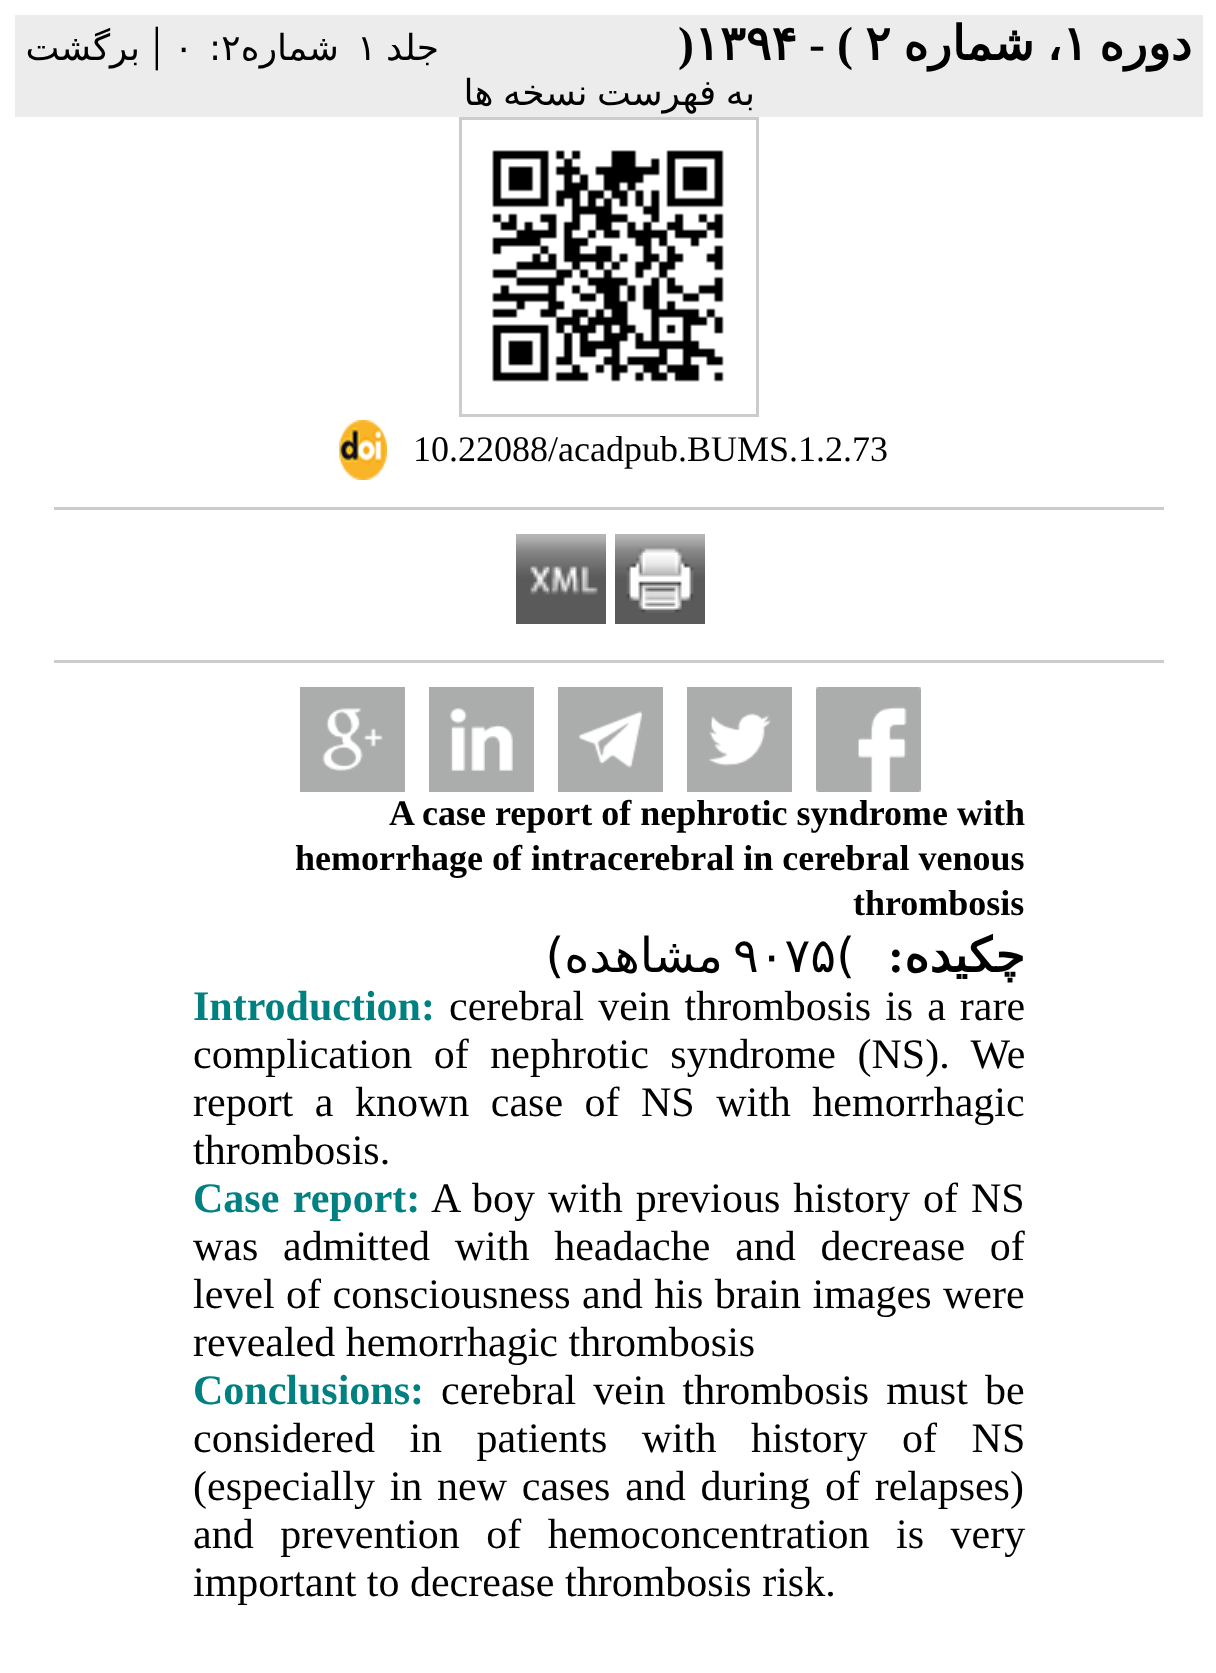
<svg xmlns="http://www.w3.org/2000/svg" width="1216" height="1673">
<rect width="100%" height="100%" fill="#fff"/>
<rect x="15" y="15" width="1188" height="102" fill="#edecec"/>
<text x="140" y="60" style="font-family:DejaVu Sans;font-size:36px;direction:rtl;fill:#000">برگشت</text>
<text x="152" y="60" style="font-family:Liberation Serif;font-size:48px;fill:#000">|</text>
<text x="174" y="60" style="font-family:DejaVu Sans;font-size:36px;fill:#000">۰</text>
<text x="209" y="60" style="font-family:DejaVu Sans;font-size:36px;fill:#000">:۲</text>
<text x="339" y="60" style="font-family:DejaVu Sans;font-size:36px;direction:rtl;fill:#000">شماره</text>
<text x="357" y="60" style="font-family:DejaVu Sans;font-size:36px;fill:#000">۱</text>
<text x="439" y="60" style="font-family:DejaVu Sans;font-size:36px;direction:rtl;fill:#000">جلد</text>
<text x="678" y="60" style="font-family:Liberation Serif;font-size:48px;font-weight:bold;fill:#000">)</text>
<text x="694" y="60" style="font-family:DejaVu Sans;font-size:48px;font-weight:bold;fill:#000">۱۳۹۴</text>
<text x="809" y="60" style="font-family:Liberation Serif;font-size:48px;font-weight:bold;fill:#000">- (</text>
<text x="865" y="60" style="font-family:DejaVu Sans;font-size:48px;font-weight:bold;fill:#000">۲</text>
<text x="1062" y="60" word-spacing="-3" style="font-family:DejaVu Sans;font-size:48px;font-weight:bold;direction:rtl;fill:#000">، شماره</text>
<text x="1062" y="60" style="font-family:DejaVu Sans;font-size:48px;font-weight:bold;fill:#000">۱</text>
<text x="1192" y="60" style="font-family:DejaVu Sans;font-size:48px;font-weight:bold;direction:rtl;fill:#000">دوره</text>
<text x="755" y="105" word-spacing="-2" style="font-family:DejaVu Sans;font-size:36px;direction:rtl;fill:#000">به فهرست نسخه ها</text>
<rect x="460.5" y="118.5" width="297" height="297" fill="none" stroke="#ccc" stroke-width="3"/>
<image x="492" y="150" width="232" height="232" href="media/1.png"/>
<image x="339" y="420" width="48" height="60" href="media/2.png"/>
<text x="413" y="461" style="font-family:Liberation Serif;font-size:36px;fill:#000">10.22088/acadpub.BUMS.1.2.73</text>
<rect x="54" y="507" width="1110" height="3" fill="#ccc"/>
<image x="516" y="534" width="90" height="90" href="media/3.png"/>
<image x="615" y="534" width="90" height="90" href="media/4.png"/>
<rect x="54" y="660" width="1110" height="3" fill="#ccc"/>
<image x="300" y="687" width="105" height="105" href="media/5.png"/>
<image x="429" y="687" width="105" height="105" href="media/6.png"/>
<image x="558" y="687" width="105" height="105" href="media/7.png"/>
<image x="687" y="687" width="105" height="105" href="media/8.png"/>
<image x="816" y="687" width="105" height="105" href="media/9.png"/>
<text x="389" y="825" style="font-family:Liberation Serif;font-size:36px;font-weight:bold;fill:#000">A case report of nephrotic syndrome with</text>
<text x="295" y="870" style="font-family:Liberation Serif;font-size:36px;font-weight:bold;fill:#000">hemorrhage of intracerebral in cerebral venous</text>
<text x="853" y="915" style="font-family:Liberation Serif;font-size:36px;font-weight:bold;fill:#000">thrombosis</text>
<text x="723" y="972" style="font-family:DejaVu Sans;font-size:48px;direction:rtl;fill:#000">مشاهده)</text>
<text x="733" y="972" style="font-family:DejaVu Sans;font-size:48px;fill:#000">۹۰۷۵(</text>
<text x="904" y="972" style="font-family:Liberation Serif;font-size:48px;font-weight:bold;direction:rtl;fill:#000">:</text>
<text x="1025" y="972" style="font-family:DejaVu Sans;font-size:48px;font-weight:bold;direction:rtl;fill:#000">چکیده</text>
<text x="193" y="1020" style="font-family:Liberation Serif;font-size:42px;font-weight:bold;fill:#008080">Introduction:</text>
<text x="449" y="1020" word-spacing="3.5" style="font-family:Liberation Serif;font-size:42px;fill:#000">cerebral vein thrombosis is a rare</text>
<text x="193" y="1068" word-spacing="11" style="font-family:Liberation Serif;font-size:42px;fill:#000">complication of nephrotic syndrome (NS). We</text>
<text x="193" y="1116" word-spacing="11" style="font-family:Liberation Serif;font-size:42px;fill:#000">report a known case of NS with hemorrhagic</text>
<text x="193" y="1164" style="font-family:Liberation Serif;font-size:42px;fill:#000">thrombosis.</text>
<text x="193" y="1212" word-spacing="3" style="font-family:Liberation Serif;font-size:42px;font-weight:bold;fill:#008080">Case report:</text>
<text x="431" y="1212" word-spacing="2.5" style="font-family:Liberation Serif;font-size:42px;fill:#000">A boy with previous history of NS</text>
<text x="193" y="1260" word-spacing="14.25" style="font-family:Liberation Serif;font-size:42px;fill:#000">was admitted with headache and decrease of</text>
<text x="193" y="1308" word-spacing="1" style="font-family:Liberation Serif;font-size:42px;fill:#000">level of consciousness and his brain images were</text>
<text x="193" y="1356" style="font-family:Liberation Serif;font-size:42px;fill:#000">revealed hemorrhagic thrombosis</text>
<text x="193" y="1404" style="font-family:Liberation Serif;font-size:42px;font-weight:bold;fill:#008080">Conclusions:</text>
<text x="441" y="1404" word-spacing="6.5" style="font-family:Liberation Serif;font-size:42px;fill:#000">cerebral vein thrombosis must be</text>
<text x="193" y="1452" word-spacing="24" style="font-family:Liberation Serif;font-size:42px;fill:#000">considered in patients with history of NS</text>
<text x="193" y="1500" word-spacing="4.25" style="font-family:Liberation Serif;font-size:42px;fill:#000">(especially in new cases and during of relapses)</text>
<text x="193" y="1548" word-spacing="16" style="font-family:Liberation Serif;font-size:42px;fill:#000">and prevention of hemoconcentration is very</text>
<text x="193" y="1596" style="font-family:Liberation Serif;font-size:42px;fill:#000">important to decrease thrombosis risk.</text>
</svg>
